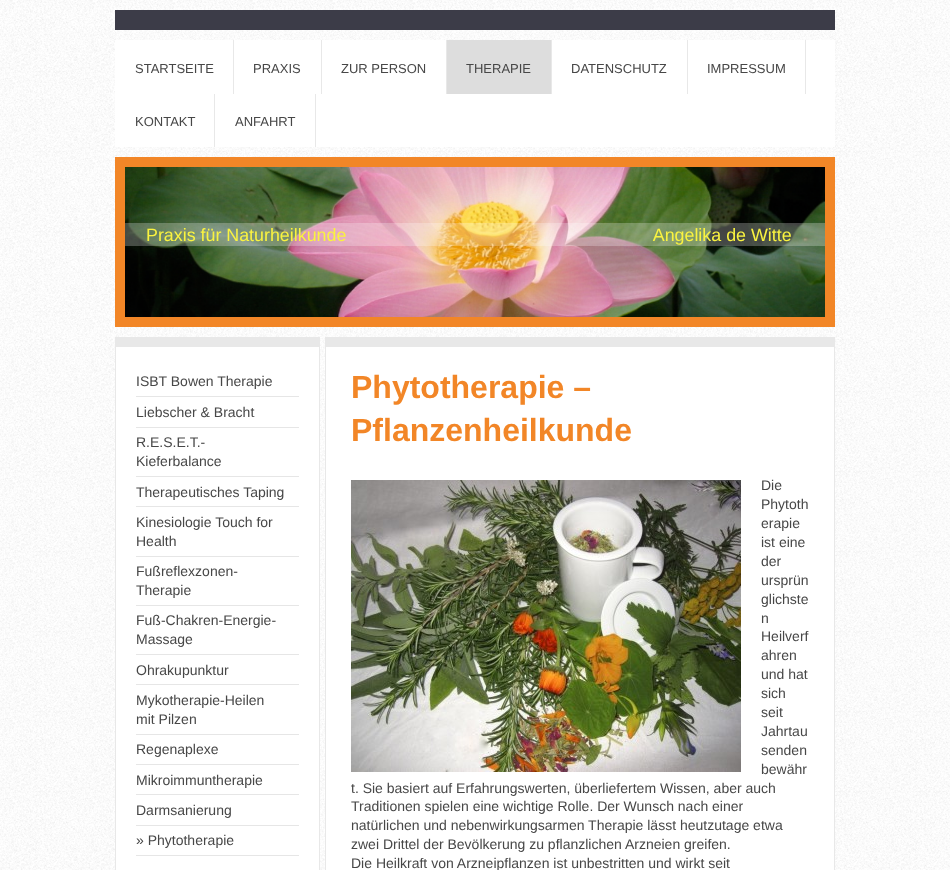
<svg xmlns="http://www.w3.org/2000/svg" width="950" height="870">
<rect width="100%" height="100%" fill="#fff"/>
<image x="0" y="0" width="950" height="870" href="media/1.png"/>
<rect x="115" y="40" width="720" height="107" fill="#fff"/>
<rect x="115" y="10" width="720" height="20" fill="#3c3c48"/>
<rect x="233" y="40" width="1" height="54" fill="#e8e8e8"/>
<text x="135" y="73" style="font-family:Liberation Sans;font-size:13px;fill:#474747">STARTSEITE</text>
<rect x="321" y="40" width="1" height="54" fill="#e8e8e8"/>
<text x="253" y="73" style="font-family:Liberation Sans;font-size:13px;fill:#474747">PRAXIS</text>
<rect x="446" y="40" width="1" height="54" fill="#e8e8e8"/>
<text x="341" y="73" style="font-family:Liberation Sans;font-size:13px;fill:#474747">ZUR PERSON</text>
<rect x="447" y="40" width="104" height="54" fill="#ddd"/>
<rect x="551" y="40" width="1" height="54" fill="#e8e8e8"/>
<text x="466" y="73" style="font-family:Liberation Sans;font-size:13px;fill:#474747">THERAPIE</text>
<rect x="687" y="40" width="1" height="54" fill="#e8e8e8"/>
<text x="571" y="73" style="font-family:Liberation Sans;font-size:13px;fill:#474747">DATENSCHUTZ</text>
<rect x="805" y="40" width="1" height="54" fill="#e8e8e8"/>
<text x="707" y="73" style="font-family:Liberation Sans;font-size:13px;fill:#474747">IMPRESSUM</text>
<rect x="214" y="94" width="1" height="53" fill="#e8e8e8"/>
<text x="135" y="126" style="font-family:Liberation Sans;font-size:13px;fill:#474747">KONTAKT</text>
<rect x="315" y="94" width="1" height="53" fill="#e8e8e8"/>
<text x="235" y="126" style="font-family:Liberation Sans;font-size:13px;fill:#474747">ANFAHRT</text>
<rect x="115" y="157" width="720" height="170" fill="#f28627"/>
<image x="125" y="167" width="700" height="150" href="media/2.png"/>
<rect x="125" y="223" width="700" height="23" fill="#ffffff42"/>
<text x="146" y="241" style="font-family:Liberation Sans;font-size:17.85px;fill:#faf340" xml:space="preserve">Praxis für Naturheilkunde                                                              Angelika de Witte</text>
<rect x="116" y="347" width="203" height="523" fill="#fff"/>
<rect x="116" y="337" width="203" height="10" fill="#e8e8e8"/>
<rect x="319" y="337" width="1" height="533" fill="#e8e8e8"/>
<rect x="115" y="337" width="1" height="533" fill="#e8e8e8"/>
<rect x="136" y="396" width="163" height="1" fill="#e6e6e6"/>
<text x="136" y="386" style="font-family:Liberation Sans;font-size:14px;fill:#474747">ISBT Bowen Therapie</text>
<rect x="136" y="427" width="163" height="1" fill="#e6e6e6"/>
<text x="136" y="417" style="font-family:Liberation Sans;font-size:14px;fill:#474747">Liebscher &amp; Bracht</text>
<rect x="136" y="476" width="163" height="1" fill="#e6e6e6"/>
<text x="136" y="447" style="font-family:Liberation Sans;font-size:14px;fill:#474747">R.E.S.E.T.-</text>
<text x="136" y="466" style="font-family:Liberation Sans;font-size:14px;fill:#474747">Kieferbalance</text>
<rect x="136" y="506" width="163" height="1" fill="#e6e6e6"/>
<text x="136" y="497" style="font-family:Liberation Sans;font-size:14px;fill:#474747">Therapeutisches Taping</text>
<rect x="136" y="556" width="163" height="1" fill="#e6e6e6"/>
<text x="136" y="527" style="font-family:Liberation Sans;font-size:14px;fill:#474747">Kinesiologie Touch for</text>
<text x="136" y="546" style="font-family:Liberation Sans;font-size:14px;fill:#474747">Health</text>
<rect x="136" y="605" width="163" height="1" fill="#e6e6e6"/>
<text x="136" y="576" style="font-family:Liberation Sans;font-size:14px;fill:#474747">Fußreflexzonen-</text>
<text x="136" y="595" style="font-family:Liberation Sans;font-size:14px;fill:#474747">Therapie</text>
<rect x="136" y="654" width="163" height="1" fill="#e6e6e6"/>
<text x="136" y="625" style="font-family:Liberation Sans;font-size:14px;fill:#474747">Fuß-Chakren-Energie-</text>
<text x="136" y="644" style="font-family:Liberation Sans;font-size:14px;fill:#474747">Massage</text>
<rect x="136" y="684" width="163" height="1" fill="#e6e6e6"/>
<text x="136" y="675" style="font-family:Liberation Sans;font-size:14px;fill:#474747">Ohrakupunktur</text>
<rect x="136" y="734" width="163" height="1" fill="#e6e6e6"/>
<text x="136" y="705" style="font-family:Liberation Sans;font-size:14px;fill:#474747">Mykotherapie-Heilen</text>
<text x="136" y="724" style="font-family:Liberation Sans;font-size:14px;fill:#474747">mit Pilzen</text>
<rect x="136" y="764" width="163" height="1" fill="#e6e6e6"/>
<text x="136" y="754" style="font-family:Liberation Sans;font-size:14px;fill:#474747">Regenaplexe</text>
<rect x="136" y="794" width="163" height="1" fill="#e6e6e6"/>
<text x="136" y="785" style="font-family:Liberation Sans;font-size:14px;fill:#474747">Mikroimmuntherapie</text>
<rect x="136" y="825" width="163" height="1" fill="#e6e6e6"/>
<text x="136" y="815" style="font-family:Liberation Sans;font-size:14px;fill:#474747">Darmsanierung</text>
<rect x="136" y="855" width="163" height="1" fill="#e6e6e6"/>
<text x="136" y="845" style="font-family:Liberation Sans;font-size:14px;fill:#474747">» Phytotherapie</text>
<rect x="326" y="347" width="508" height="523" fill="#fff"/>
<rect x="326" y="337" width="508" height="10" fill="#e8e8e8"/>
<rect x="834" y="337" width="1" height="533" fill="#e8e8e8"/>
<rect x="325" y="337" width="1" height="533" fill="#e8e8e8"/>
<text x="351" y="398" style="font-family:Liberation Sans;font-size:32px;font-weight:bold;fill:#f28627">Phytotherapie –</text>
<text x="351" y="441" style="font-family:Liberation Sans;font-size:32px;font-weight:bold;fill:#f28627">Pflanzenheilkunde</text>
<text x="761" y="490" style="font-family:Liberation Sans;font-size:14px;fill:#474747">Die</text>
<text x="761" y="509" style="font-family:Liberation Sans;font-size:14px;fill:#474747">Phytoth</text>
<text x="761" y="528" style="font-family:Liberation Sans;font-size:14px;fill:#474747">erapie</text>
<text x="761" y="547" style="font-family:Liberation Sans;font-size:14px;fill:#474747">ist eine</text>
<text x="761" y="566" style="font-family:Liberation Sans;font-size:14px;fill:#474747">der</text>
<text x="761" y="585" style="font-family:Liberation Sans;font-size:14px;fill:#474747">ursprün</text>
<text x="761" y="604" style="font-family:Liberation Sans;font-size:14px;fill:#474747">glichste</text>
<text x="761" y="623" style="font-family:Liberation Sans;font-size:14px;fill:#474747">n</text>
<text x="761" y="641" style="font-family:Liberation Sans;font-size:14px;fill:#474747">Heilverf</text>
<text x="761" y="660" style="font-family:Liberation Sans;font-size:14px;fill:#474747">ahren</text>
<text x="761" y="679" style="font-family:Liberation Sans;font-size:14px;fill:#474747">und hat</text>
<text x="761" y="698" style="font-family:Liberation Sans;font-size:14px;fill:#474747">sich</text>
<text x="761" y="717" style="font-family:Liberation Sans;font-size:14px;fill:#474747">seit</text>
<text x="761" y="736" style="font-family:Liberation Sans;font-size:14px;fill:#474747">Jahrtau</text>
<text x="761" y="755" style="font-family:Liberation Sans;font-size:14px;fill:#474747">senden</text>
<text x="761" y="774" style="font-family:Liberation Sans;font-size:14px;fill:#474747">bewähr</text>
<text x="351" y="793" style="font-family:Liberation Sans;font-size:14px;fill:#474747">t. Sie basiert auf Erfahrungswerten, überliefertem Wissen, aber auch</text>
<text x="351" y="811" style="font-family:Liberation Sans;font-size:14px;fill:#474747">Traditionen spielen eine wichtige Rolle. Der Wunsch nach einer</text>
<text x="351" y="830" style="font-family:Liberation Sans;font-size:14px;fill:#474747">natürlichen und nebenwirkungsarmen Therapie lässt heutzutage etwa</text>
<text x="351" y="849" style="font-family:Liberation Sans;font-size:14px;fill:#474747">zwei Drittel der Bevölkerung zu pflanzlichen Arzneien greifen.</text>
<text x="351" y="868" style="font-family:Liberation Sans;font-size:14px;fill:#474747">Die Heilkraft von Arzneipflanzen ist unbestritten und wirkt seit</text>
<image x="351" y="480" width="390" height="292" href="media/3.png"/>
</svg>
